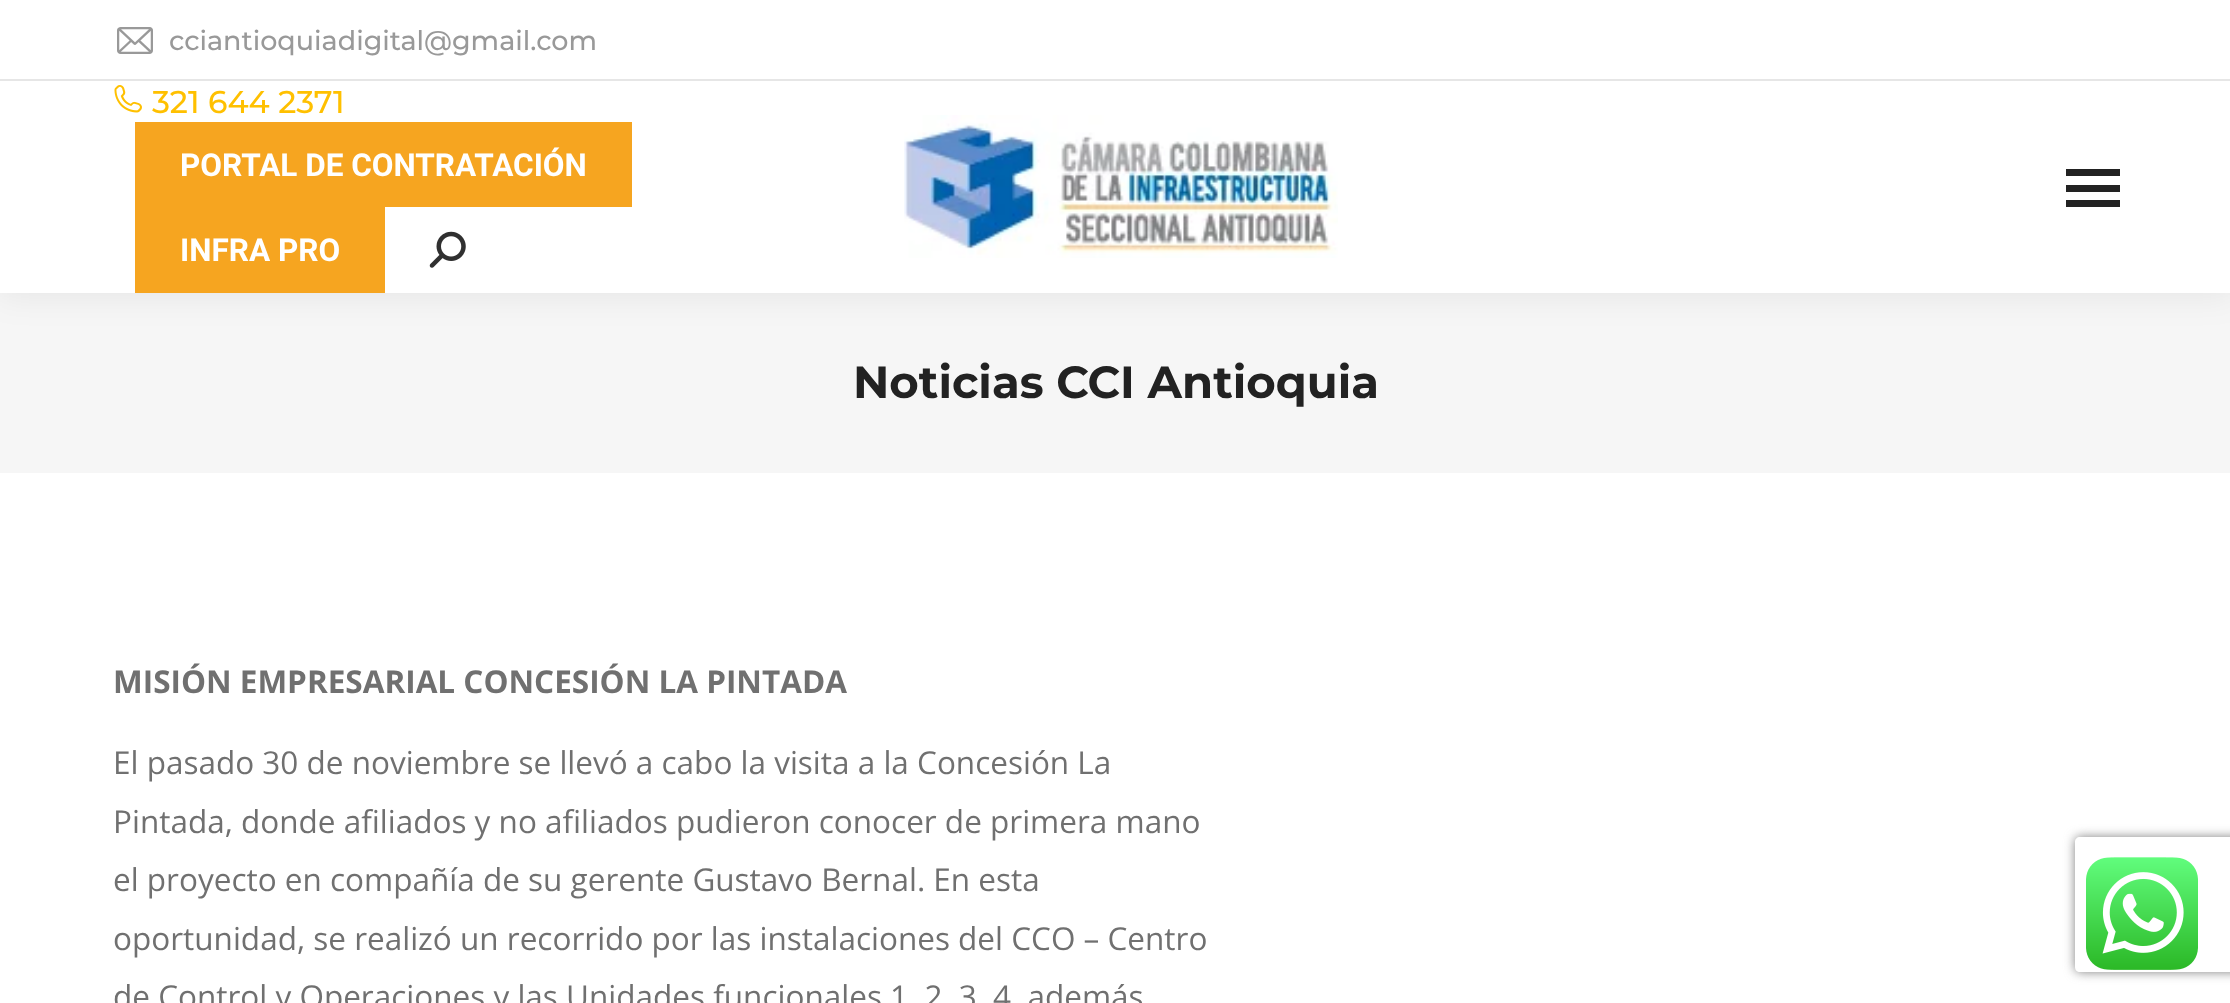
<svg xmlns="http://www.w3.org/2000/svg" width="2230" height="1003">
<defs>
<clipPath id="clip1"><path d="M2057 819h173v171h-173zm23 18h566c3 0 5 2 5 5v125c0 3-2 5-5 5h-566c-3 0-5-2-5-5v-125c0-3 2-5 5-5z" clip-rule="evenodd"/></clipPath>
</defs>
<rect width="100%" height="100%" fill="#fff"/>
<rect y="293" width="2230" height="180" fill="#f6f6f6"/>
<rect x="-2" y="-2" width="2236" height="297" fill="#00000012" filter="blur(17px)"/>
<rect width="2230" height="293" fill="#fff"/>
<image x="117" y="27" width="36" height="27" href="media/1.png"/>
<text x="169" y="50" style="font-family:Montserrat;font-size:27px;font-weight:500;fill:#999">cciantioquiadigital@gmail.com</text>
<rect y="79" width="2230" height="2" fill="#e6e6e6"/>
<image x="114" y="85" width="28" height="28" href="media/2.png"/>
<text x="152" y="113" style="font-family:Montserrat;font-size:31.5px;font-weight:500;fill:#ffc000">321 644 2371</text>
<rect x="135" y="122" width="497" height="85" fill="#f6a520"/>
<text x="180" y="176" style="font-family:Roboto;font-size:31.5px;font-weight:bold;fill:#fff">PORTAL DE CONTRATACIÓN</text>
<rect x="135" y="207" width="250" height="86" fill="#f6a520"/>
<text x="180" y="261" style="font-family:Roboto;font-size:31.5px;font-weight:bold;fill:#fff">INFRA PRO</text>
<image x="429" y="231" width="37" height="37" href="media/3.png"/>
<image x="904" y="115" width="434" height="143" href="media/4.png"/>
<rect x="2066" y="169" width="54" height="7" fill="#222"/>
<rect x="2066" y="185" width="54" height="7" fill="#222"/>
<rect x="2066" y="200" width="54" height="7" fill="#222"/>
<text x="853" y="398" style="font-family:Montserrat;font-size:45px;font-weight:bold;fill:#222">Noticias CCI Antioquia</text>
<text x="113" y="693" style="font-family:Open Sans;font-size:31.5px;font-weight:bold;fill:#707070">MISIÓN EMPRESARIAL CONCESIÓN LA PINTADA</text>
<text x="113" y="774" style="font-family:Open Sans;font-size:31.5px;fill:#707070">El pasado 30 de noviembre se llevó a cabo la visita a la Concesión La</text>
<text x="113" y="833" style="font-family:Open Sans;font-size:31.5px;fill:#707070">Pintada, donde afiliados y no afiliados pudieron conocer de primera mano</text>
<text x="113" y="891" style="font-family:Open Sans;font-size:31.5px;fill:#707070">el proyecto en compañía de su gerente Gustavo Bernal. En esta</text>
<text x="113" y="950" style="font-family:Open Sans;font-size:31.5px;fill:#707070">oportunidad, se realizó un recorrido por las instalaciones del CCO – Centro</text>
<text x="113" y="1008" style="font-family:Open Sans;font-size:31.5px;fill:#707070">de Control y Operaciones y las Unidades funcionales 1, 2, 3, 4, además</text>
<g clip-path="url(#clip1)">
<rect x="2075" y="837" width="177" height="135" rx="5" fill="#808080" filter="blur(5.5px)"/>
</g>
<image x="2086" y="857" width="112" height="113" href="media/5.png"/>
</svg>
